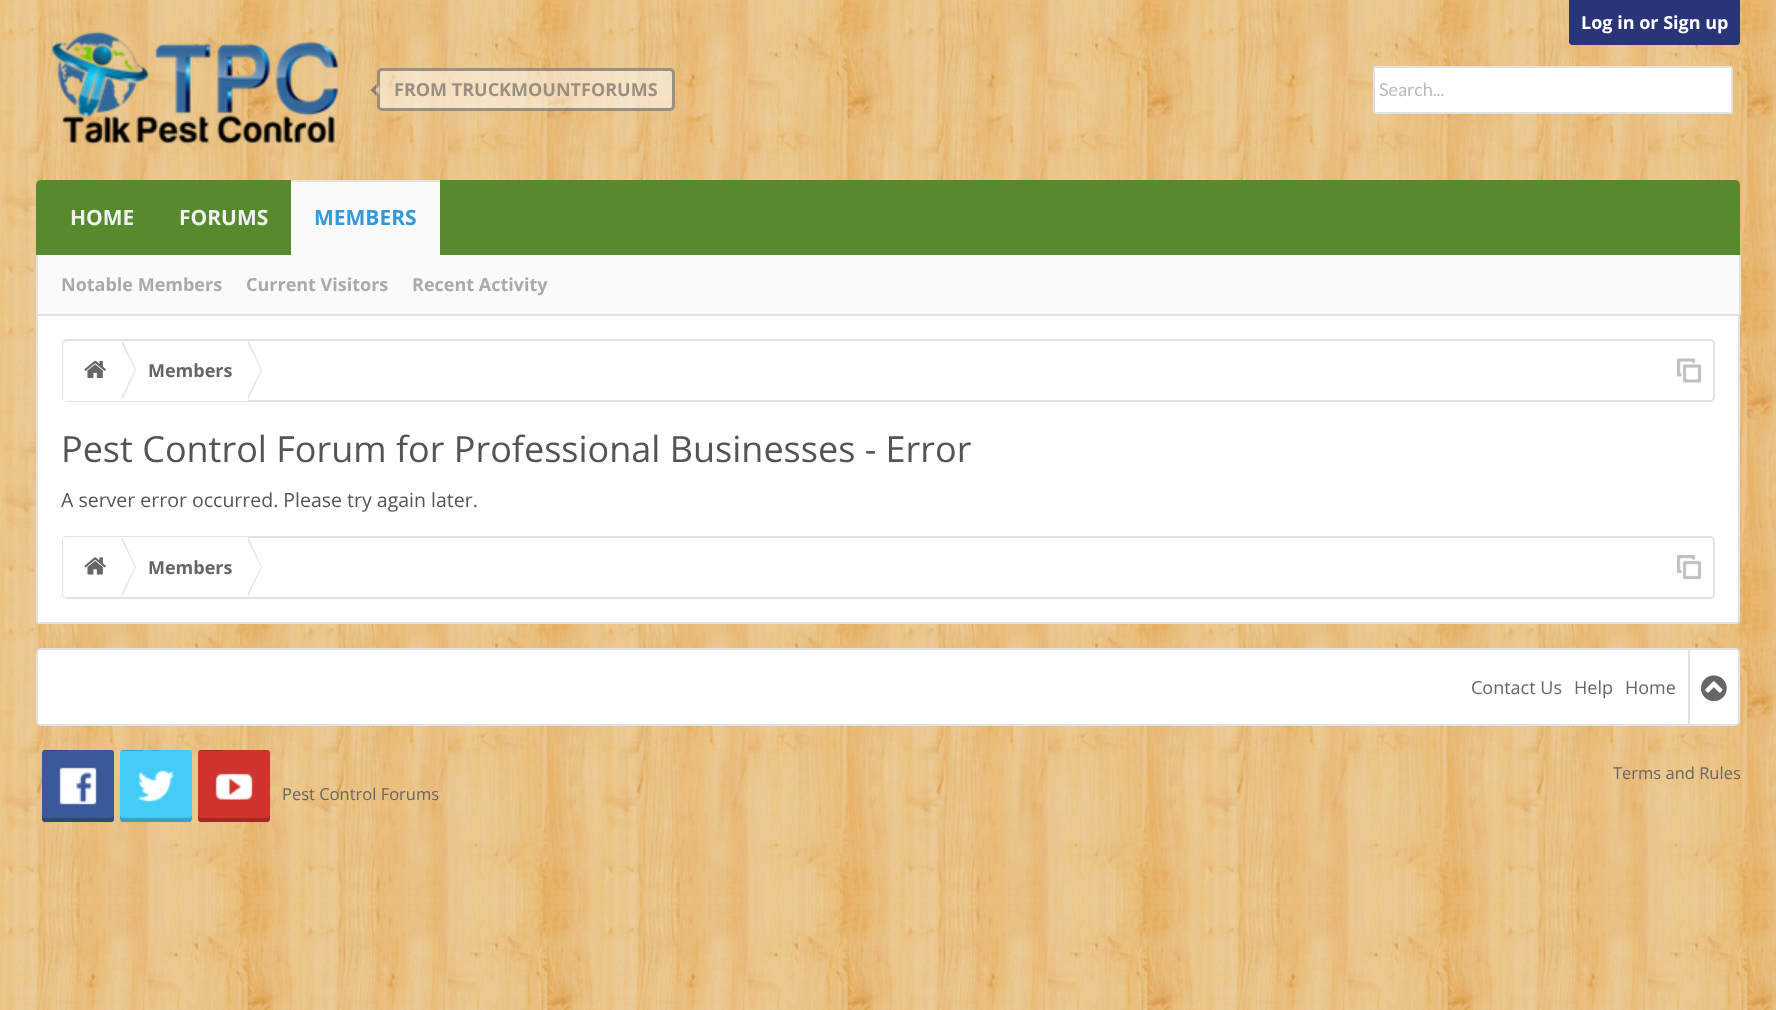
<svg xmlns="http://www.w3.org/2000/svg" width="1776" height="1010">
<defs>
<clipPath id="clip1"><rect x="63" y="341" width="1650" height="60" rx="3"/></clipPath>
<clipPath id="clip2"><rect x="63" y="537" width="1650" height="60" rx="3"/></clipPath>
</defs>
<rect width="100%" height="100%" fill="#fff"/>
<image x="0" y="858" width="1776" height="152" href="media/1.png"/>
<image x="0" y="0" width="1776" height="858" href="media/2.png"/>
<path d="M1569 0h171v42c0 1.5-1.5 3-3 3h-165c-1.5 0-3-1.5-3-3z" fill="#2a3579"/>
<text x="1581" y="29" style="font-family:Open Sans;font-size:18px;font-weight:bold;fill:#fff">Log in or Sign up</text>
<image x="51" y="31" width="289" height="114" href="media/3.png"/>
<rect x="377" y="68" width="298" height="43" rx="5" fill="#ffffff80"/>
<rect x="378.5" y="69.5" width="295" height="40" rx="3.5" fill="none" stroke="#40404080" stroke-width="3"/>
<path d="M376.5 84v12l-6-6z" fill="#40404080"/>
<path d="M379.5 85.5v9l-4.5-4.5z" fill="#ffffff80"/>
<text x="394" y="96" style="font-family:Open Sans;font-size:18px;font-weight:bold;fill:#9a9081">FROM TRUCKMOUNTFORUMS</text>
<rect x="1374" y="67" width="358" height="46" rx="2" fill="#fff" stroke="#e2e2e2" stroke-width="2"/>
<text x="1379" y="96" style="font-family:Lato;font-size:18px;fill:#bbb">Search...</text>
<path d="M41 180h1694c3 0 5 2 5 5v70h-1704v-70c0-3 2-5 5-5z" fill="#568a2c"/>
<rect x="291" y="182" width="149" height="73" fill="#fafafa"/>
<rect x="291" y="180" width="149" height="2" fill="#e2e2e2"/>
<text x="314" y="225" style="font-family:Open Sans;font-size:21px;font-weight:bold;fill:#3498db">MEMBERS</text>
<rect x="38" y="255" width="1701" height="59" fill="#fafafa"/>
<rect x="1739" y="255" width="2" height="60" fill="#e2e2e2"/>
<path d="M36 315h1704v304c0 3-2 5-5 5h-1694c-3 0-5-2-5-5z" fill="#fff"/>
<path d="M36 315h1704v305c0 2-2 4-4 4h-1696c-2 0-4-2-4-4zm2 0h1700v305c0 1-1 2-2 2h-1696c-1 0-2-1-2-2z" fill="#e2e2e2" fill-rule="evenodd"/>
<rect x="36" y="314" width="1704" height="2" fill="#e2e2e2"/>
<rect x="36" y="255" width="2" height="60" fill="#e2e2e2"/>
<text x="61" y="291" style="font-family:Open Sans;font-size:18px;font-weight:bold;fill:#aaa">Notable Members</text>
<text x="246" y="291" style="font-family:Open Sans;font-size:18px;font-weight:bold;fill:#aaa">Current Visitors</text>
<text x="412" y="291" style="font-family:Open Sans;font-size:18px;font-weight:bold;fill:#aaa">Recent Activity</text>
<text x="70" y="225" style="font-family:Open Sans;font-size:21px;font-weight:bold;fill:#f0f0f0">HOME</text>
<text x="179" y="225" style="font-family:Open Sans;font-size:21px;font-weight:bold;fill:#f0f0f0">FORUMS</text>
<rect x="63" y="340" width="1651" height="61" rx="4" fill="none" stroke="#e2e2e2" stroke-width="2"/>
<g clip-path="url(#clip1)">
<path d="M66 341h56v61h-56c-1.5 0-3-1.5-3-3v-55c0-1.5 1.5-3 3-3z" fill="#fff"/>
</g>
<image x="84" y="360" width="22" height="18" href="media/4.png"/>
<path d="M122 400v-60l14 30z" fill="#e2e2e2"/>
<path d="M120 400v-60l15 30z" fill="#fff"/>
<rect x="122" y="400" width="126" height="1" fill="#fff"/>
<text x="148" y="377" style="font-family:Open Sans;font-size:18px;font-weight:bold;fill:#666">Members</text>
<path d="M248 400v-60l14 30z" fill="#e2e2e2"/>
<path d="M246 400v-60l15 30z" fill="#fff"/>
<image x="1677" y="358" width="24" height="25" href="media/5.png"/>
<text x="61" y="462" style="font-family:Open Sans;font-size:36px;fill:#545454">Pest Control Forum for Professional Businesses - Error</text>
<text x="61" y="507" style="font-family:Open Sans;font-size:19.5px;fill:#545454">A server error occurred. Please try again later.</text>
<rect x="63" y="537" width="1651" height="61" rx="4" fill="none" stroke="#e2e2e2" stroke-width="2"/>
<g clip-path="url(#clip2)">
<path d="M66 537h56v62h-56c-1.5 0-3-1.5-3-3v-56c0-1.5 1.5-3 3-3z" fill="#fff"/>
</g>
<image x="84" y="557" width="22" height="18" href="media/6.png"/>
<rect x="122" y="537" width="126" height="1" fill="#fff"/>
<path d="M122 597v-60l14 30z" fill="#e2e2e2"/>
<path d="M120 597v-60l15 30z" fill="#fff"/>
<text x="148" y="574" style="font-family:Open Sans;font-size:18px;font-weight:bold;fill:#666">Members</text>
<path d="M248 597v-60l14 30z" fill="#e2e2e2"/>
<path d="M246 597v-60l15 30z" fill="#fff"/>
<image x="1677" y="555" width="24" height="24" href="media/7.png"/>
<rect x="37" y="649" width="1702" height="76" rx="4" fill="#fff" stroke="#e2e2e2" stroke-width="2"/>
<text x="1471" y="694" style="font-family:Open Sans;font-size:18px;fill:#666">Contact Us</text>
<text x="1574" y="694" style="font-family:Open Sans;font-size:18px;fill:#666">Help</text>
<text x="1625" y="694" style="font-family:Open Sans;font-size:18px;fill:#666">Home</text>
<rect x="1688" y="650" width="2" height="75" fill="#e2e2e2"/>
<image x="1701" y="675" width="26" height="27" href="media/8.png"/>
<rect x="42" y="750" width="72" height="72" rx="3" fill="#3b5998"/>
<image x="43" y="750" width="54" height="55" href="media/9.png"/>
<path d="M42 814c0 11 1 8 14 8h44c13 0 14 3 14-8c0 2-1 4-3 4h-66c-2 0-3-2-3-4z" fill="#00000033"/>
<rect x="120" y="750" width="72" height="72" rx="3" fill="#44ccf6"/>
<image x="121" y="750" width="54" height="52" href="media/10.png"/>
<path d="M120 814c0 11 1 8 14 8h44c13 0 14 3 14-8c0 2-1 4-3 4h-66c-2 0-3-2-3-4z" fill="#00000033"/>
<rect x="198" y="750" width="72" height="72" rx="3" fill="#ce332d"/>
<image x="199" y="750" width="54" height="50" href="media/11.png"/>
<path d="M198 814c0 11 1 8 14 8h44c13 0 14 3 14-8c0 2-1 4-3 4h-66c-2 0-3-2-3-4z" fill="#00000033"/>
<text x="1613" y="779" style="font-family:Open Sans;font-size:16.5px;fill:#666">Terms and Rules</text>
<text x="282" y="800" style="font-family:Open Sans;font-size:16.5px;fill:#666">Pest Control Forums</text>
</svg>
